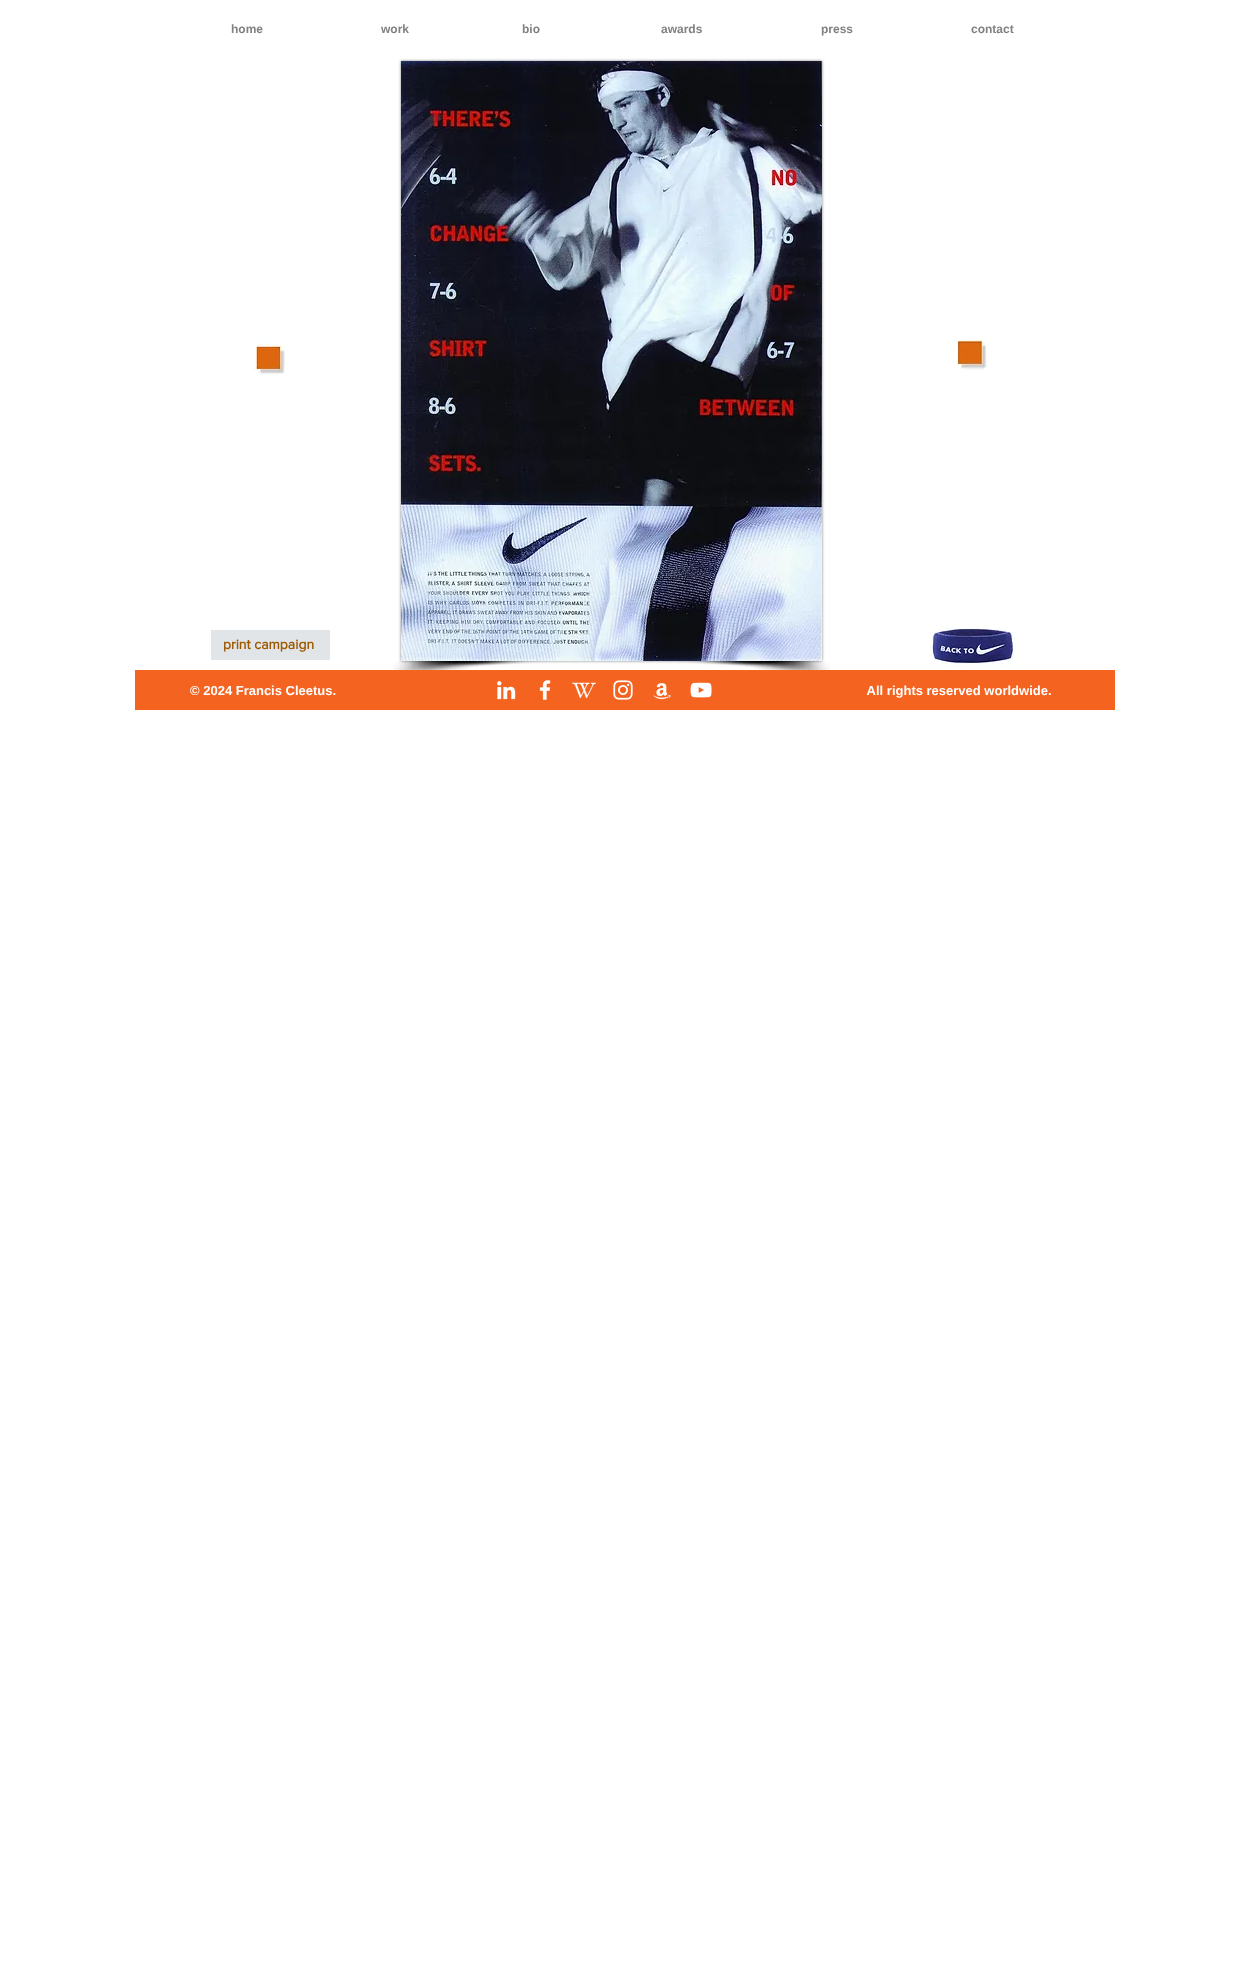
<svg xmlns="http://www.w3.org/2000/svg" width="1249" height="1967">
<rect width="100%" height="100%" fill="#fff"/>
<text x="231" y="33" style="font-family:Liberation Sans;font-size:12px;font-weight:bold;fill:#818181">home</text>
<text x="381" y="33" style="font-family:Liberation Sans;font-size:12px;font-weight:bold;fill:#818181">work</text>
<text x="522" y="33" style="font-family:Liberation Sans;font-size:12px;font-weight:bold;fill:#818181">bio</text>
<text x="661" y="33" style="font-family:Liberation Sans;font-size:12px;font-weight:bold;fill:#818181">awards</text>
<text x="821" y="33" style="font-family:Liberation Sans;font-size:12px;font-weight:bold;fill:#818181">press</text>
<text x="971" y="33" style="font-family:Liberation Sans;font-size:12px;font-weight:bold;fill:#818181">contact</text>
<image x="253" y="341" width="32" height="34" href="media/1.png"/>
<rect x="401" y="61" width="421" height="600" fill="#00000080" filter="blur(1.5px)"/>
<image x="401" y="61" width="421" height="600" href="media/2.png"/>
<image x="393" y="661" width="153" height="9" href="media/3.png"/>
<image x="677" y="661" width="153" height="9" href="media/4.png"/>
<image x="957" y="339" width="30" height="32" href="media/5.png"/>
<rect x="211" y="630" width="119" height="30" fill="#e1e5e8"/>
<text x="223" y="649" style="font-family:'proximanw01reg';font-size:14px;font-weight:bold;fill:#9e5900">print campaign</text>
<image x="926" y="628" width="90" height="40" href="media/6.png"/>
<rect x="135" y="670" width="980" height="40" fill="#f46320"/>
<text x="190" y="695" style="font-family:Liberation Sans;font-size:13px;font-weight:bold;fill:#fff" xml:space="preserve">© 2024 Francis Cleetus.                                                                                                                                                   All rights reserved worldwide.</text>
<image x="497" y="681" width="19" height="19" href="media/7.png"/>
<image x="539" y="680" width="12" height="20" href="media/8.png"/>
<image x="572" y="682" width="24" height="17" href="media/9.png"/>
<image x="613" y="680" width="20" height="20" href="media/10.png"/>
<image x="653" y="683" width="18" height="17" href="media/11.png"/>
<image x="690" y="682" width="22" height="16" href="media/12.png"/>
</svg>
